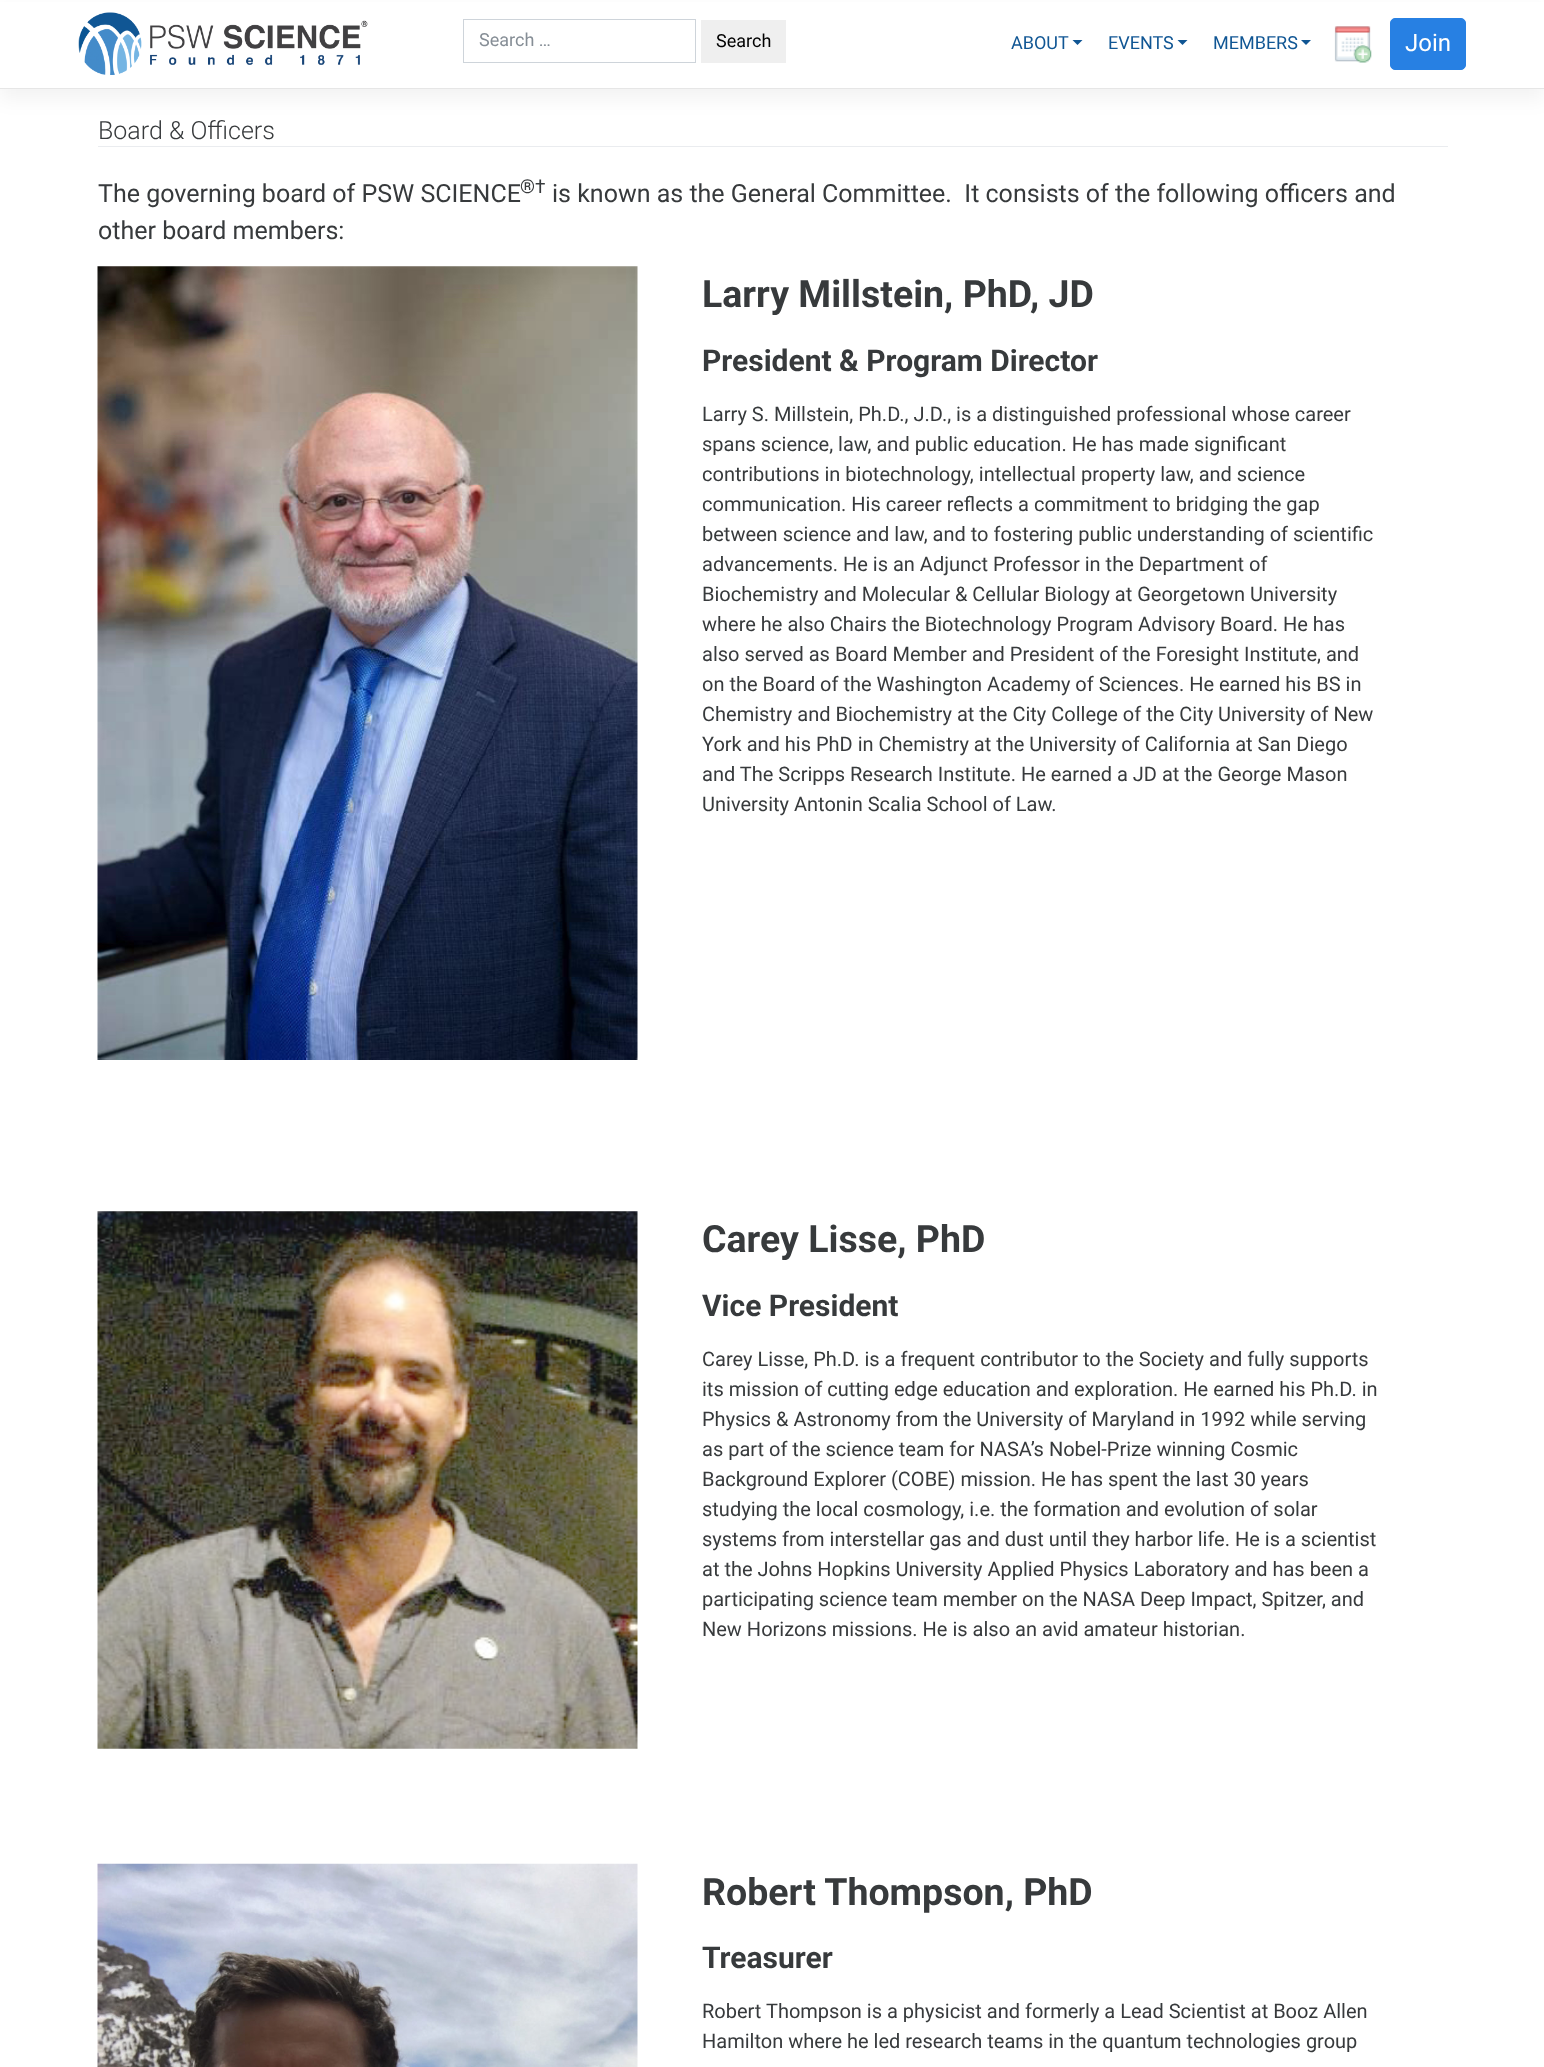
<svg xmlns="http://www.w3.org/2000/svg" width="1544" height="2067">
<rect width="100%" height="100%" fill="#fff"/>
<rect y="10" width="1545" height="89" fill="#0000000d" filter="blur(9.5px)"/>
<rect y="2" width="1544" height="86" fill="#fff"/>
<rect y="88" width="1544" height="1" fill="#e6e6e6"/>
<image x="78" y="12" width="290" height="63" href="media/1.png"/>
<rect x="463.5" y="19.5" width="232" height="43" fill="none" stroke="#ced4da"/>
<text x="479" y="46" style="font-family:Roboto;font-size:18px;fill:#868e96">Search …</text>
<rect x="701" y="20" width="85" height="43" fill="#efefef"/>
<text x="716" y="47" style="font-family:Roboto;font-size:18px;fill:#000">Search</text>
<text x="1011" y="49" style="font-family:Roboto;font-size:18px;fill:#105694">ABOUT</text>
<path d="M1072.5 40h10l-5 5z" fill="#105694"/>
<text x="1108" y="49" style="font-family:Roboto;font-size:18px;fill:#105694">EVENTS</text>
<path d="M1177.5 40h10l-5 5z" fill="#105694"/>
<text x="1213" y="49" style="font-family:Roboto;font-size:18px;fill:#105694">MEMBERS</text>
<path d="M1301 40h10l-5 5z" fill="#105694"/>
<image x="1334" y="26" width="38" height="37" href="media/2.png"/>
<rect x="1390.5" y="18.5" width="75" height="51" rx="4.5" fill="#2780e3" stroke="#2780e3"/>
<text x="1405" y="51" style="font-family:Roboto;font-size:24px;fill:#fff">Join</text>
<rect x="98" y="146" width="1350" height="1" fill="#eaecef"/>
<text x="98" y="139" style="font-family:Roboto;font-size:25px;font-weight:300;fill:#373a3c">Board &amp; Officers</text>
<text x="98" y="202" style="font-family:Roboto;font-size:25px;fill:#373a3c">The governing board of PSW SCIENCE</text>
<text x="520" y="193" style="font-family:Roboto;font-size:19px;fill:#373a3c">®†</text>
<text x="552" y="202" style="font-family:Roboto;font-size:25px;fill:#373a3c" xml:space="preserve">is known as the General Committee.  It consists of the following officers and</text>
<text x="98" y="239" style="font-family:Roboto;font-size:25px;fill:#373a3c">other board members:</text>
<image x="97" y="266" width="541" height="794" href="media/3.png"/>
<text x="702" y="307" style="font-family:Roboto;font-size:37.5px;font-weight:bold;fill:#373a3c">Larry Millstein, PhD, JD</text>
<text x="702" y="371" style="font-family:Roboto;font-size:30px;font-weight:bold;fill:#373a3c">President &amp; Program Director</text>
<text x="702" y="421" style="font-family:Roboto;font-size:20px;fill:#373a3c">Larry S. Millstein, Ph.D., J.D., is a distinguished professional whose career</text>
<text x="702" y="451" style="font-family:Roboto;font-size:20px;fill:#373a3c">spans science, law, and public education. He has made significant</text>
<text x="702" y="481" style="font-family:Roboto;font-size:20px;fill:#373a3c">contributions in biotechnology, intellectual property law, and science</text>
<text x="702" y="511" style="font-family:Roboto;font-size:20px;fill:#373a3c">communication. His career reflects a commitment to bridging the gap</text>
<text x="702" y="541" style="font-family:Roboto;font-size:20px;fill:#373a3c">between science and law, and to fostering public understanding of scientific</text>
<text x="702" y="571" style="font-family:Roboto;font-size:20px;fill:#373a3c">advancements. He is an Adjunct Professor in the Department of</text>
<text x="702" y="601" style="font-family:Roboto;font-size:20px;fill:#373a3c">Biochemistry and Molecular &amp; Cellular Biology at Georgetown University</text>
<text x="702" y="631" style="font-family:Roboto;font-size:20px;fill:#373a3c">where he also Chairs the Biotechnology Program Advisory Board. He has</text>
<text x="702" y="661" style="font-family:Roboto;font-size:20px;fill:#373a3c">also served as Board Member and President of the Foresight Institute, and</text>
<text x="702" y="691" style="font-family:Roboto;font-size:20px;fill:#373a3c">on the Board of the Washington Academy of Sciences. He earned his BS in</text>
<text x="702" y="721" style="font-family:Roboto;font-size:20px;fill:#373a3c">Chemistry and Biochemistry at the City College of the City University of New</text>
<text x="702" y="751" style="font-family:Roboto;font-size:20px;fill:#373a3c">York and his PhD in Chemistry at the University of California at San Diego</text>
<text x="702" y="781" style="font-family:Roboto;font-size:20px;fill:#373a3c">and The Scripps Research Institute. He earned a JD at the George Mason</text>
<text x="702" y="811" style="font-family:Roboto;font-size:20px;fill:#373a3c">University Antonin Scalia School of Law.</text>
<image x="97" y="1211" width="541" height="538" href="media/4.png"/>
<text x="702" y="1252" style="font-family:Roboto;font-size:37.5px;font-weight:bold;fill:#373a3c">Carey Lisse, PhD</text>
<text x="702" y="1316" style="font-family:Roboto;font-size:30px;font-weight:bold;fill:#373a3c">Vice President</text>
<text x="702" y="1366" style="font-family:Roboto;font-size:20px;fill:#373a3c">Carey Lisse, Ph.D. is a frequent contributor to the Society and fully supports</text>
<text x="702" y="1396" style="font-family:Roboto;font-size:20px;fill:#373a3c">its mission of cutting edge education and exploration. He earned his Ph.D. in</text>
<text x="702" y="1426" style="font-family:Roboto;font-size:20px;fill:#373a3c">Physics &amp; Astronomy from the University of Maryland in 1992 while serving</text>
<text x="702" y="1456" style="font-family:Roboto;font-size:20px;fill:#373a3c">as part of the science team for NASA’s Nobel-Prize winning Cosmic</text>
<text x="702" y="1486" style="font-family:Roboto;font-size:20px;fill:#373a3c">Background Explorer (COBE) mission. He has spent the last 30 years</text>
<text x="702" y="1516" style="font-family:Roboto;font-size:20px;fill:#373a3c">studying the local cosmology, i.e. the formation and evolution of solar</text>
<text x="702" y="1546" style="font-family:Roboto;font-size:20px;fill:#373a3c">systems from interstellar gas and dust until they harbor life. He is a scientist</text>
<text x="702" y="1576" style="font-family:Roboto;font-size:20px;fill:#373a3c">at the Johns Hopkins University Applied Physics Laboratory and has been a</text>
<text x="702" y="1606" style="font-family:Roboto;font-size:20px;fill:#373a3c">participating science team member on the NASA Deep Impact, Spitzer, and</text>
<text x="702" y="1636" style="font-family:Roboto;font-size:20px;fill:#373a3c">New Horizons missions. He is also an avid amateur historian.</text>
<image x="97" y="1863" width="541" height="204" href="media/5.png"/>
<text x="702" y="1905" style="font-family:Roboto;font-size:37.5px;font-weight:bold;fill:#373a3c">Robert Thompson, PhD</text>
<text x="702" y="1968" style="font-family:Roboto;font-size:30px;font-weight:bold;fill:#373a3c">Treasurer</text>
<text x="702" y="2018" style="font-family:Roboto;font-size:20px;fill:#373a3c">Robert Thompson is a physicist and formerly a Lead Scientist at Booz Allen</text>
<text x="702" y="2048" style="font-family:Roboto;font-size:20px;fill:#373a3c">Hamilton where he led research teams in the quantum technologies group</text>
</svg>
